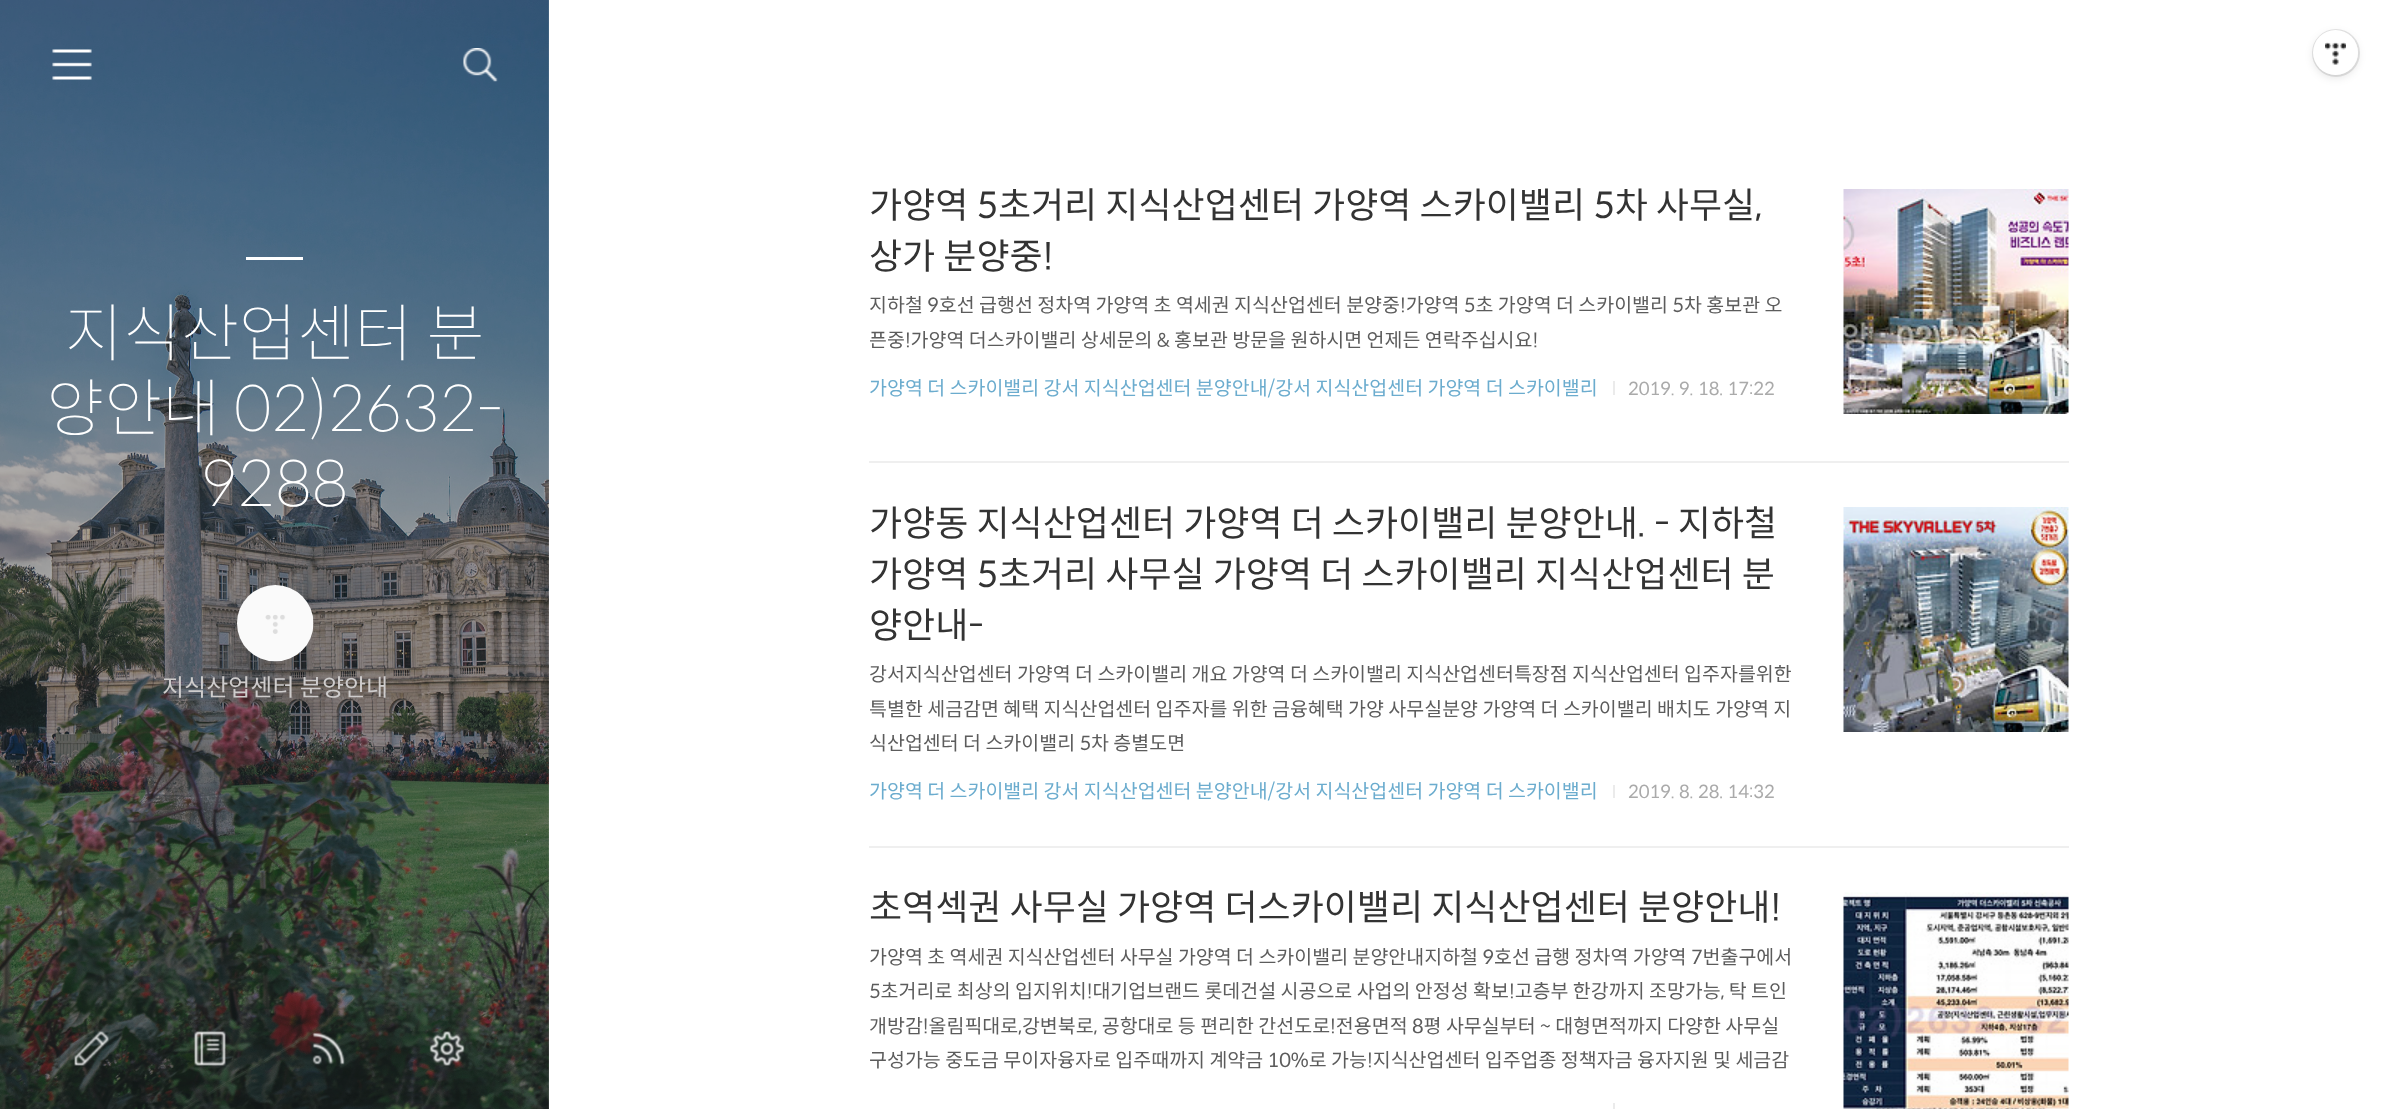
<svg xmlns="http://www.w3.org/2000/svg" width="2387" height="1109">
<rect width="100%" height="100%" fill="#fff"/>
<rect x="2313" y="33" width="45" height="45" rx="22.5" fill="#0000001a" filter="blur(4px)"/>
<circle cx="2336" cy="53" r="23" fill="none" stroke="#0000001a" stroke-width="2"/>
<circle cx="2335.5" cy="52.5" r="22.5" fill="#fff"/>
<image x="2325" y="42" width="21" height="23" href="media/1.png"/>
<image x="0" y="0" width="549" height="1109" href="media/5.png"/>
<image x="52" y="49" width="40" height="31" href="media/2.png"/>
<image x="463" y="48" width="35" height="34" href="media/3.png"/>
<rect x="246" y="257" width="57" height="3" fill="#fff"/>
<text x="65" y="356" style="font-family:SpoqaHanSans;font-size:63px;font-weight:100;fill:#fff">지식산업센터 분</text>
<text x="46" y="431" style="font-family:SpoqaHanSans;font-size:63px;font-weight:100;fill:#fff">양안내 02)2632-</text>
<text x="201" y="506" style="font-family:SpoqaHanSans;font-size:63px;font-weight:100;fill:#fff">9288</text>
<image x="237" y="585" width="77" height="77" href="media/4.png"/>
<text x="162" y="696" style="font-family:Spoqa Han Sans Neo;font-size:24px;fill:#cecccc">지식산업센터 분양안내</text>
<image x="74" y="1031" width="35" height="35" href="media/6.png"/>
<image x="194" y="1031" width="32" height="35" href="media/7.png"/>
<image x="312" y="1032" width="33" height="33" href="media/8.png"/>
<image x="429" y="1031" width="36" height="35" href="media/9.png"/>
<rect x="869" y="461" width="1200" height="2" fill="#efefef"/>
<text x="869" y="218" style="font-family:Spoqa Han Sans Neo;font-size:36px;fill:#333">가양역 5초거리 지식산업센터 가양역 스카이밸리 5차 사무실,</text>
<text x="869" y="269" style="font-family:Spoqa Han Sans Neo;font-size:36px;fill:#333">상가 분양중!</text>
<text x="869" y="312" style="font-family:Spoqa Han Sans Neo;font-size:19.5px;fill:#5c5c5c">지하철 9호선 급행선 정차역 가양역 초 역세권 지식산업센터 분양중!가양역 5초 가양역 더 스카이밸리 5차 홍보관 오</text>
<text x="869" y="347" style="font-family:Spoqa Han Sans Neo;font-size:19.5px;fill:#5c5c5c">픈중!가양역 더스카이밸리 상세문의 &amp; 홍보관 방문을 원하시면 언제든 연락주십시요!</text>
<image x="1843" y="189" width="226" height="225" href="media/10.png"/>
<text x="869" y="395" style="font-family:Spoqa Han Sans Neo;font-size:19.5px;fill:#6bacce">가양역 더 스카이밸리 강서 지식산업센터 분양안내/강서 지식산업센터 가양역 더 스카이밸리</text>
<rect x="1613" y="381" width="2" height="14" fill="#ebebeb"/>
<text x="1628" y="395" style="font-family:Spoqa Han Sans Neo;font-size:18px;fill:#aaa">2019. 9. 18. 17:22</text>
<rect x="869" y="846" width="1200" height="2" fill="#efefef"/>
<text x="869" y="536" style="font-family:Spoqa Han Sans Neo;font-size:36px;fill:#333">가양동 지식산업센터 가양역 더 스카이밸리 분양안내. - 지하철</text>
<text x="869" y="587" style="font-family:Spoqa Han Sans Neo;font-size:36px;fill:#333">가양역 5초거리 사무실 가양역 더 스카이밸리 지식산업센터 분</text>
<text x="869" y="638" style="font-family:Spoqa Han Sans Neo;font-size:36px;fill:#333">양안내-</text>
<text x="869" y="681" style="font-family:Spoqa Han Sans Neo;font-size:19.5px;fill:#5c5c5c">강서지식산업센터 가양역 더 스카이밸리 개요 가양역 더 스카이밸리 지식산업센터특장점 지식산업센터 입주자를위한</text>
<text x="869" y="716" style="font-family:Spoqa Han Sans Neo;font-size:19.5px;fill:#5c5c5c">특별한 세금감면 혜택 지식산업센터 입주자를 위한 금융혜택 가양 사무실분양 가양역 더 스카이밸리 배치도 가양역 지</text>
<text x="869" y="750" style="font-family:Spoqa Han Sans Neo;font-size:19.5px;fill:#5c5c5c">식산업센터 더 스카이밸리 5차 층별도면</text>
<image x="1843" y="507" width="226" height="225" href="media/11.png"/>
<text x="869" y="798" style="font-family:Spoqa Han Sans Neo;font-size:19.5px;fill:#6bacce">가양역 더 스카이밸리 강서 지식산업센터 분양안내/강서 지식산업센터 가양역 더 스카이밸리</text>
<rect x="1613" y="785" width="2" height="13" fill="#ebebeb"/>
<text x="1628" y="798" style="font-family:Spoqa Han Sans Neo;font-size:18px;fill:#aaa">2019. 8. 28. 14:32</text>
<text x="869" y="920" style="font-family:Spoqa Han Sans Neo;font-size:36px;fill:#333">초역섹권 사무실 가양역 더스카이밸리 지식산업센터 분양안내!</text>
<text x="869" y="964" style="font-family:Spoqa Han Sans Neo;font-size:19.5px;fill:#5c5c5c">가양역 초 역세권 지식산업센터 사무실 가양역 더 스카이밸리 분양안내지하철 9호선 급행 정차역 가양역 7번출구에서</text>
<text x="869" y="998" style="font-family:Spoqa Han Sans Neo;font-size:19.5px;fill:#5c5c5c">5초거리로 최상의 입지위치!대기업브랜드 롯데건설 시공으로 사업의 안정성 확보!고층부 한강까지 조망가능, 탁 트인</text>
<text x="869" y="1033" style="font-family:Spoqa Han Sans Neo;font-size:19.5px;fill:#5c5c5c">개방감!올림픽대로,강변북로, 공항대로 등 편리한 간선도로!전용면적 8평 사무실부터 ~ 대형면적까지 다양한 사무실</text>
<text x="869" y="1067" style="font-family:Spoqa Han Sans Neo;font-size:19.5px;fill:#5c5c5c">구성가능 중도금 무이자융자로 입주때까지 계약금 10%로 가능!지식산업센터 입주업종 정책자금 융자지원 및 세금감</text>
<image x="1843" y="892" width="226" height="217" href="media/12.png"/>
<rect x="1613" y="1103" width="2" height="6" fill="#ebebeb"/>
</svg>
